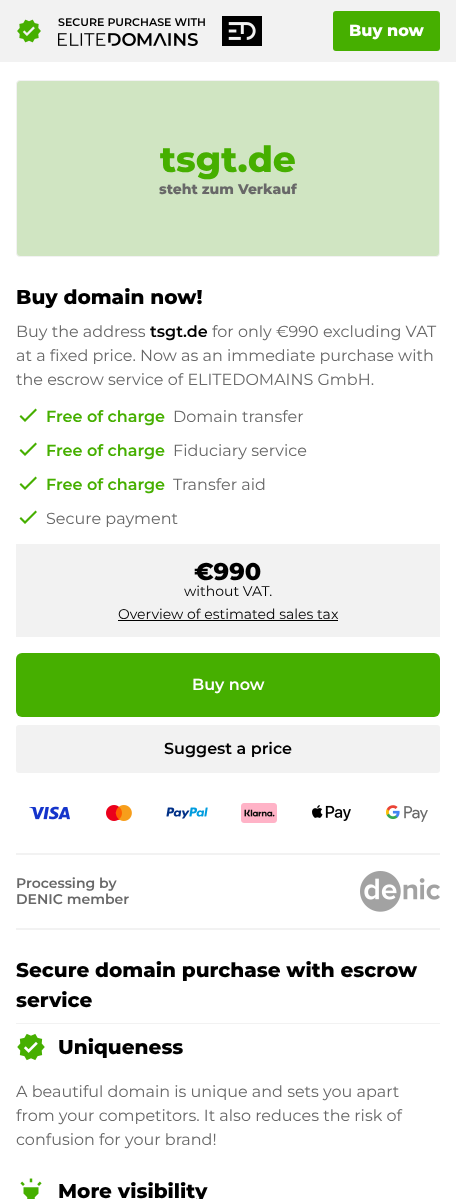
<svg xmlns="http://www.w3.org/2000/svg" width="456" height="1199">
<rect width="100%" height="100%" fill="#fff"/>
<rect width="456" height="62" fill="#f2f2f2"/>
<image x="17" y="19" width="24" height="24" href="media/1.png"/>
<text x="58" y="26" style="font-family:Montserrat;font-size:11px;font-weight:600;fill:#000">SECURE PURCHASE WITH</text>
<image x="58" y="33" width="140" height="13" href="media/2.png"/>
<image x="222" y="16" width="40" height="30" href="media/3.png"/>
<rect x="333" y="11" width="107" height="40" rx="3" fill="#46af00"/>
<text x="349" y="36" style="font-family:Montserrat;font-size:16px;font-weight:800;fill:#fff">Buy now</text>
<rect x="16.5" y="80.5" width="423" height="176" rx="3.5" fill="#d0e5c2" stroke="#f2f2f2"/>
<text x="160" y="172" style="font-family:Montserrat;font-size:36px;font-weight:800;fill:#46af00">tsgt.de</text>
<text x="159" y="194" style="font-family:Montserrat;font-size:14px;font-weight:800;fill:#686868">steht zum Verkauf</text>
<text x="16" y="304" style="font-family:Montserrat;font-size:20px;font-weight:800;fill:#000">Buy domain now!</text>
<text x="16" y="337" style="font-family:Montserrat;font-size:16px;fill:#686868">Buy the address</text>
<text x="150" y="337" style="font-family:Montserrat;font-size:16px;font-weight:600;fill:#000">tsgt.de</text>
<text x="212" y="337" style="font-family:Montserrat;font-size:16px;fill:#686868">for only €990 excluding VAT</text>
<text x="16" y="361" style="font-family:Montserrat;font-size:16px;fill:#686868">at a fixed price. Now as an immediate purchase with</text>
<text x="16" y="385" style="font-family:Montserrat;font-size:16px;fill:#686868">the escrow service of ELITEDOMAINS GmbH.</text>
<path d="M25 419l10.5-10.5l1.5 1.5l-12 12l-5.5-5.5l1.5-1.5z" fill="#46af00"/>
<text x="46" y="422" style="font-family:Montserrat;font-size:16px;font-weight:600;fill:#46af00">Free of charge</text>
<text x="173" y="422" style="font-family:Montserrat;font-size:16px;fill:#686868">Domain transfer</text>
<path d="M25 453l10.5-10.5l1.5 1.5l-12 12l-5.5-5.5l1.5-1.5z" fill="#46af00"/>
<text x="46" y="456" style="font-family:Montserrat;font-size:16px;font-weight:600;fill:#46af00">Free of charge</text>
<text x="173" y="456" style="font-family:Montserrat;font-size:16px;fill:#686868">Fiduciary service</text>
<path d="M25 487l10.5-10.5l1.5 1.5l-12 12l-5.5-5.5l1.5-1.5z" fill="#46af00"/>
<text x="46" y="490" style="font-family:Montserrat;font-size:16px;font-weight:600;fill:#46af00">Free of charge</text>
<text x="173" y="490" style="font-family:Montserrat;font-size:16px;fill:#686868">Transfer aid</text>
<path d="M25 521l10.5-10.5l1.5 1.5l-12 12l-5.5-5.5l1.5-1.5z" fill="#46af00"/>
<text x="46" y="524" style="font-family:Montserrat;font-size:16px;fill:#686868">Secure payment</text>
<rect x="16" y="544" width="424" height="93" fill="#f2f2f2"/>
<text x="194" y="580" style="font-family:Montserrat;font-size:24px;font-weight:800;fill:#000">€990</text>
<text x="184" y="596" style="font-family:Montserrat;font-size:14px;fill:#000">without VAT.</text>
<text x="118" y="619" style="font-family:Montserrat;font-size:14px;fill:#000">Overview of estimated sales tax</text>
<rect x="118" y="620" width="220" height="1" fill="#000"/>
<rect x="16" y="653" width="424" height="64" rx="6" fill="#46af00"/>
<text x="192" y="690" style="font-family:Montserrat;font-size:16px;font-weight:600;fill:#fff">Buy now</text>
<rect x="16" y="725" width="424" height="48" rx="3" fill="#f2f2f2"/>
<text x="164" y="754" style="font-family:Montserrat;font-size:16px;font-weight:600;fill:#000">Suggest a price</text>
<image x="29" y="806" width="41" height="14" href="media/4.png"/>
<image x="106" y="805" width="26" height="16" href="media/5.png"/>
<image x="166" y="807" width="42" height="12" href="media/6.png"/>
<image x="241" y="803" width="36" height="20" href="media/7.png"/>
<image x="312" y="805" width="39" height="16" href="media/8.png"/>
<image x="386" y="805" width="42" height="17" href="media/9.png"/>
<rect x="16" y="853" width="424" height="2" fill="#f2f2f2"/>
<rect x="16" y="928" width="424" height="2" fill="#f2f2f2"/>
<text x="16" y="888" style="font-family:Montserrat;font-size:14px;font-weight:600;fill:#686868">Processing by</text>
<text x="16" y="904" style="font-family:Montserrat;font-size:14px;font-weight:600;fill:#686868">DENIC member</text>
<image x="360" y="871" width="80" height="41" href="media/10.png"/>
<rect x="16" y="1023" width="424" height="1" fill="#f2f2f2"/>
<text x="16" y="977" style="font-family:Montserrat;font-size:20px;font-weight:800;fill:#000">Secure domain purchase with escrow</text>
<text x="16" y="1007" style="font-family:Montserrat;font-size:20px;font-weight:800;fill:#000">service</text>
<image x="17" y="1033" width="28" height="28" href="media/11.png"/>
<text x="58" y="1054" style="font-family:Montserrat;font-size:20px;font-weight:800;fill:#000">Uniqueness</text>
<text x="16" y="1097" style="font-family:Montserrat;font-size:16px;fill:#686868">A beautiful domain is unique and sets you apart</text>
<text x="16" y="1121" style="font-family:Montserrat;font-size:16px;fill:#686868">from your competitors. It also reduces the risk of</text>
<text x="16" y="1145" style="font-family:Montserrat;font-size:16px;fill:#686868">confusion for your brand!</text>
<image x="20" y="1178" width="22" height="21" href="media/12.png"/>
<text x="58" y="1198" style="font-family:Montserrat;font-size:20px;font-weight:800;fill:#000">More visibility</text>
</svg>
